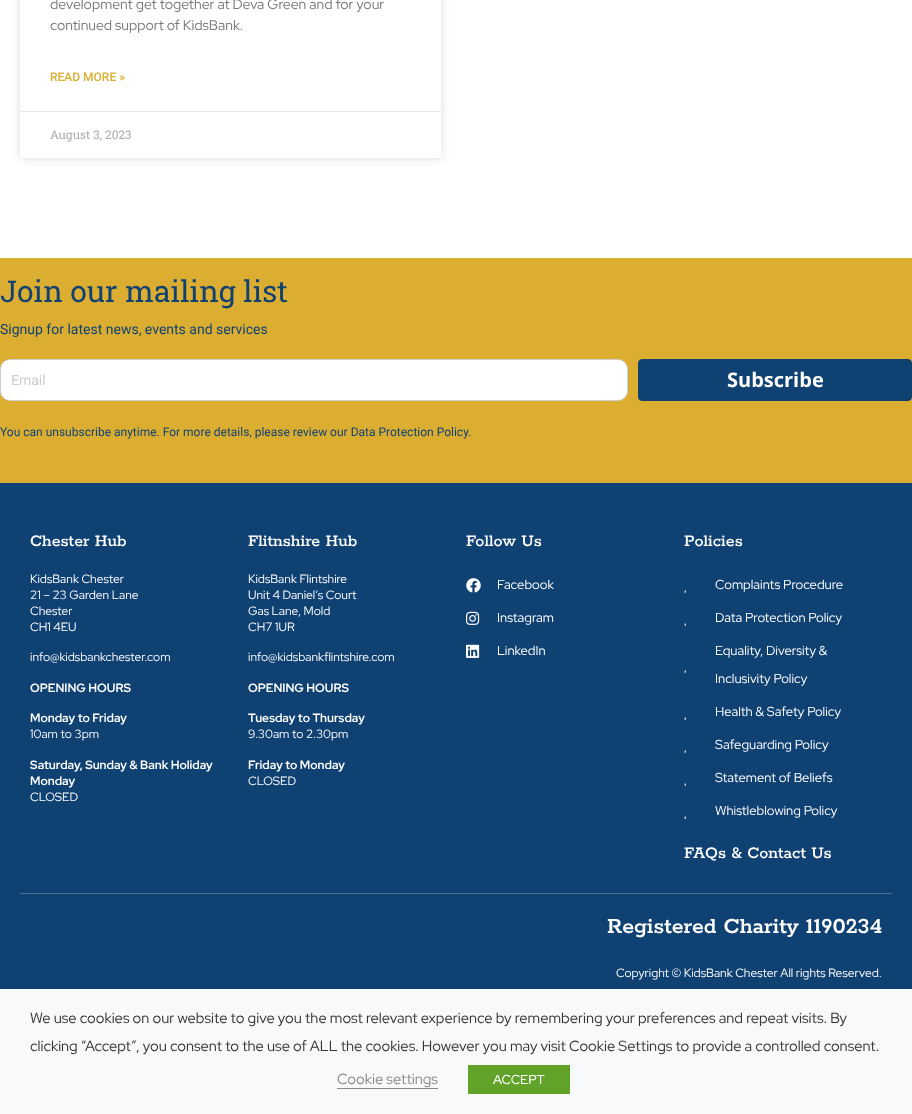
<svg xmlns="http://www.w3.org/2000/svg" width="912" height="1114">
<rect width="100%" height="100%" fill="#fff"/>
<rect x="20" y="-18" width="421" height="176" rx="3" fill="#00000026" filter="blur(5px)"/>
<rect x="20" y="-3" width="421" height="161" rx="3" fill="#fff"/>
<text x="50" y="9" style="font-family:Red Hat Display;font-size:14px;fill:#777">development get together at Deva Green and for your</text>
<text x="50" y="30" style="font-family:Red Hat Display;font-size:14px;fill:#777">continued support of KidsBank.</text>
<text x="50" y="81" style="font-family:Roboto;font-size:12px;font-weight:500;fill:#dbae31">READ MORE »</text>
<rect x="20" y="111" width="421" height="1" fill="#eaeaea"/>
<text x="50" y="139" style="font-family:Roboto Slab;font-size:12px;fill:#adadad">August 3, 2023</text>
<rect y="258" width="912" height="225" fill="#dbae31"/>
<text x="0" y="302" style="font-family:Roboto Slab;font-size:30px;fill:#104173">Join our mailing list</text>
<text x="0" y="334" style="font-family:Roboto;font-size:14px;fill:#104173">Signup for latest news, events and services</text>
<rect x="0.5" y="359.5" width="627" height="41" rx="9.5" fill="#fff" stroke="#ccc"/>
<text x="11" y="385" style="font-family:Roboto;font-size:14px;fill:#ccc">Email</text>
<rect x="638.5" y="359.5" width="273" height="41" rx="3.5" fill="#104173" stroke="#104173"/>
<text x="727" y="387" style="font-family:Open Sans;font-size:20px;font-weight:bold;fill:#fff">Subscribe</text>
<text x="0" y="436" style="font-family:Roboto;font-size:12px;fill:#104173">You can unsubscribe anytime. For more details, please review our Data Protection Policy.</text>
<rect y="483" width="912" height="506" fill="#104173"/>
<rect y="989" width="912" height="125" fill="#f8f9fb"/>
<text x="30" y="546" style="font-family:Rokkitt;font-size:18px;font-weight:500;fill:#fff">Chester Hub</text>
<text x="30" y="583" style="font-family:Red Hat Display;font-size:12px;fill:#fff">KidsBank Chester</text>
<text x="30" y="599" style="font-family:Red Hat Display;font-size:12px;fill:#fff">21 – 23 Garden Lane</text>
<text x="30" y="615" style="font-family:Red Hat Display;font-size:12px;fill:#fff">Chester</text>
<text x="30" y="631" style="font-family:Red Hat Display;font-size:12px;fill:#fff">CH1 4EU</text>
<text x="30" y="661" style="font-family:Red Hat Display;font-size:12px;fill:#fff">info@kidsbankchester.com</text>
<text x="30" y="692" style="font-family:Red Hat Display;font-size:12px;font-weight:bold;fill:#fff">OPENING HOURS</text>
<text x="30" y="722" style="font-family:Red Hat Display;font-size:12px;font-weight:bold;fill:#fff">Monday to Friday</text>
<text x="30" y="738" style="font-family:Red Hat Display;font-size:12px;fill:#fff">10am to 3pm</text>
<text x="30" y="769" style="font-family:Red Hat Display;font-size:12px;font-weight:bold;fill:#fff">Saturday, Sunday &amp; Bank Holiday</text>
<text x="30" y="785" style="font-family:Red Hat Display;font-size:12px;font-weight:bold;fill:#fff">Monday</text>
<text x="30" y="801" style="font-family:Red Hat Display;font-size:12px;fill:#fff">CLOSED</text>
<text x="248" y="546" style="font-family:Rokkitt;font-size:18px;font-weight:500;fill:#fff">Flitnshire Hub</text>
<text x="248" y="583" style="font-family:Red Hat Display;font-size:12px;fill:#fff">KidsBank Flintshire</text>
<text x="248" y="599" style="font-family:Red Hat Display;font-size:12px;fill:#fff">Unit 4 Daniel’s Court</text>
<text x="248" y="615" style="font-family:Red Hat Display;font-size:12px;fill:#fff">Gas Lane, Mold</text>
<text x="248" y="631" style="font-family:Red Hat Display;font-size:12px;fill:#fff">CH7 1UR</text>
<text x="248" y="661" style="font-family:Red Hat Display;font-size:12px;fill:#fff">info@kidsbankflintshire.com</text>
<text x="248" y="692" style="font-family:Red Hat Display;font-size:12px;font-weight:bold;fill:#fff">OPENING HOURS</text>
<text x="248" y="722" style="font-family:Red Hat Display;font-size:12px;font-weight:bold;fill:#fff">Tuesday to Thursday</text>
<text x="248" y="738" style="font-family:Red Hat Display;font-size:12px;fill:#fff">9.30am to 2.30pm</text>
<text x="248" y="769" style="font-family:Red Hat Display;font-size:12px;font-weight:bold;fill:#fff">Friday to Monday</text>
<text x="248" y="785" style="font-family:Red Hat Display;font-size:12px;fill:#fff">CLOSED</text>
<text x="466" y="546" style="font-family:Rokkitt;font-size:18px;font-weight:500;fill:#fff">Follow Us</text>
<image x="466" y="578" width="15" height="15" href="media/1.png"/>
<text x="497" y="589" style="font-family:Red Hat Display;font-size:13px;fill:#fff">Facebook</text>
<image x="466" y="611" width="14" height="14" href="media/2.png"/>
<text x="497" y="622" style="font-family:Red Hat Display;font-size:13px;fill:#fff">Instagram</text>
<image x="466" y="644" width="14" height="14" href="media/3.png"/>
<text x="497" y="655" style="font-family:Red Hat Display;font-size:13px;fill:#fff">LinkedIn</text>
<text x="684" y="546" style="font-family:Rokkitt;font-size:18px;font-weight:500;fill:#fff">Policies</text>
<image x="684" y="590" width="2" height="4" href="media/4.png"/>
<text x="715" y="589" style="font-family:Red Hat Display;font-size:13px;fill:#fff">Complaints Procedure</text>
<image x="684" y="623" width="2" height="4" href="media/4.png"/>
<text x="715" y="622" style="font-family:Red Hat Display;font-size:13px;fill:#fff">Data Protection Policy</text>
<image x="684" y="670" width="2" height="4" href="media/4.png"/>
<text x="715" y="655" style="font-family:Red Hat Display;font-size:13px;fill:#fff">Equality, Diversity &amp;</text>
<text x="715" y="683" style="font-family:Red Hat Display;font-size:13px;fill:#fff">Inclusivity Policy</text>
<image x="684" y="717" width="2" height="4" href="media/4.png"/>
<text x="715" y="716" style="font-family:Red Hat Display;font-size:13px;fill:#fff">Health &amp; Safety Policy</text>
<image x="684" y="750" width="2" height="4" href="media/4.png"/>
<text x="715" y="749" style="font-family:Red Hat Display;font-size:13px;fill:#fff">Safeguarding Policy</text>
<text x="715" y="782" style="font-family:Red Hat Display;font-size:13px;fill:#fff">Statement of Beliefs</text>
<image x="684" y="783" width="2" height="4" href="media/4.png"/>
<image x="684" y="816" width="2" height="4" href="media/4.png"/>
<text x="715" y="815" style="font-family:Red Hat Display;font-size:13px;fill:#fff">Whistleblowing Policy</text>
<text x="684" y="858" style="font-family:Rokkitt;font-size:18px;font-weight:500;fill:#fff">FAQs &amp; Contact Us</text>
<rect x="20" y="893" width="872" height="1" fill="#4c7196"/>
<text x="607" y="933" style="font-family:Rokkitt;font-size:24px;font-weight:600;fill:#fff">Registered Charity 1190234</text>
<text x="616" y="977" style="font-family:Red Hat Display;font-size:12px;fill:#fff">Copyright © KidsBank Chester All rights Reserved.</text>
<text x="30" y="1023" style="font-family:Red Hat Display;font-size:14.67px;fill:#333">We use cookies on our website to give you the most relevant experience by remembering your preferences and repeat visits. By</text>
<text x="30" y="1051" style="font-family:Red Hat Display;font-size:14.67px;fill:#333">clicking “Accept”, you consent to the use of ALL the cookies. However you may visit Cookie Settings to provide a controlled consent.</text>
<text x="337" y="1084" style="font-family:Red Hat Display;font-size:14.67px;fill:#898888">Cookie settings</text>
<rect x="337" y="1088" width="101" height="1" fill="#898888"/>
<rect x="468" y="1065" width="102" height="29" fill="#61a229"/>
<text x="493" y="1084" style="font-family:Red Hat Display;font-size:13px;font-weight:500;fill:#fff">ACCEPT</text>
</svg>
